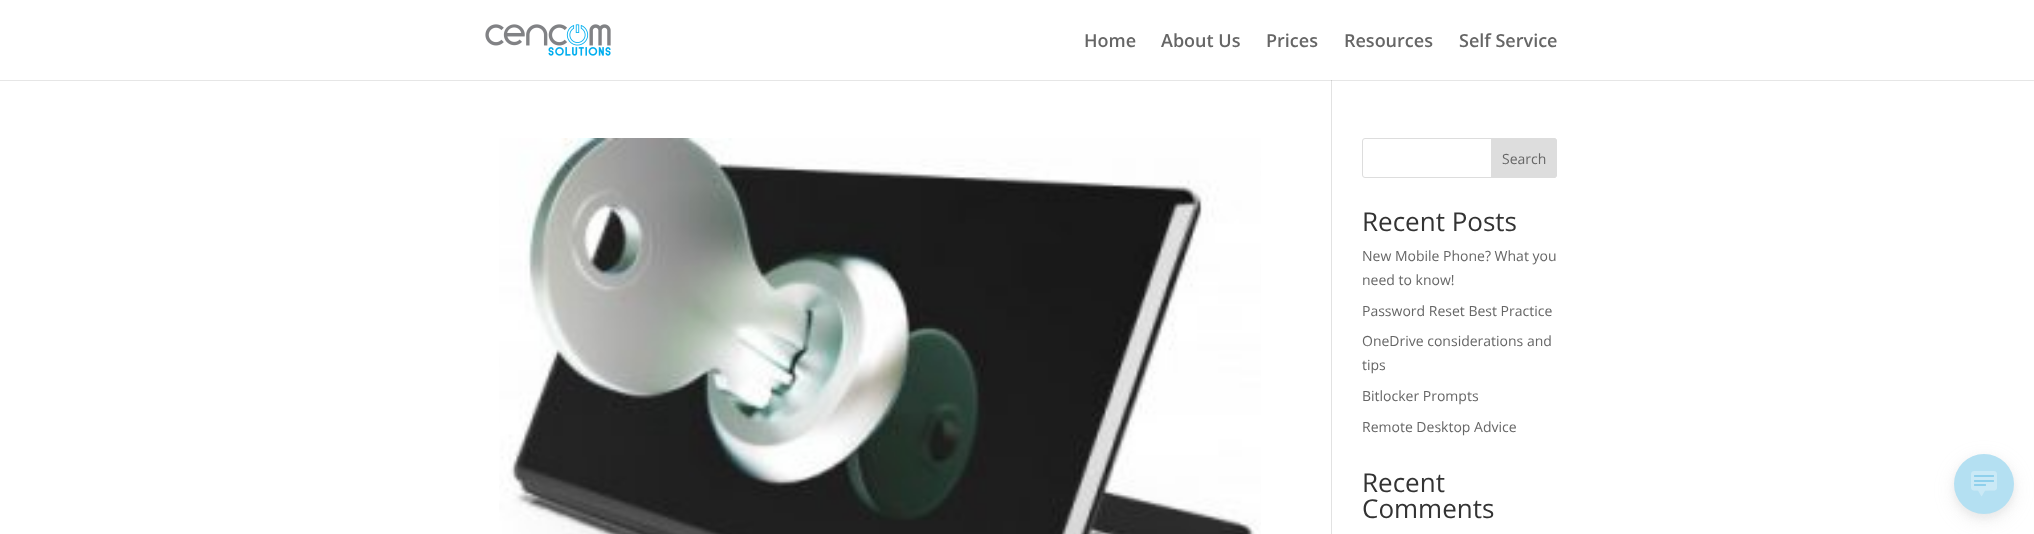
<svg xmlns="http://www.w3.org/2000/svg" width="2034" height="534">
<rect width="100%" height="100%" fill="#fff"/>
<rect y="80" width="2034" height="1" fill="#e6e6e6"/>
<image x="485" y="24" width="126" height="32" href="media/1.png"/>
<text x="1084" y="47" style="font-family:Open Sans;font-size:18px;font-weight:600;fill:#666">Home</text>
<text x="1161" y="47" style="font-family:Open Sans;font-size:18px;font-weight:600;fill:#666">About Us</text>
<text x="1266" y="47" style="font-family:Open Sans;font-size:18px;font-weight:600;fill:#666">Prices</text>
<text x="1344" y="47" style="font-family:Open Sans;font-size:18px;font-weight:600;fill:#666">Resources</text>
<text x="1459" y="47" style="font-family:Open Sans;font-size:18px;font-weight:600;fill:#666">Self Service</text>
<rect x="1331" y="80" width="1" height="454" fill="#e2e2e2"/>
<rect x="1331" y="80" width="1" height="1" fill="#cbcbcb"/>
<image x="499" y="138" width="762" height="396" href="media/2.png"/>
<rect x="1362.5" y="138.5" width="194" height="39" rx="2.5" fill="none" stroke="#ddd"/>
<path d="M1491.5 138.5h62.5c1.5 0 2.5 1 2.5 2.5v34c0 1.5-1 2.5-2.5 2.5h-62.5z" fill="#ddd" stroke="#ddd"/>
<text x="1502" y="164" style="font-family:Open Sans;font-size:14px;fill:#666">Search</text>
<text x="1362" y="231" style="font-family:Open Sans;font-size:26px;fill:#333">Recent Posts</text>
<text x="1362" y="261" style="font-family:Open Sans;font-size:14px;fill:#666">New Mobile Phone? What you</text>
<text x="1362" y="285" style="font-family:Open Sans;font-size:14px;fill:#666">need to know!</text>
<text x="1362" y="316" style="font-family:Open Sans;font-size:14px;fill:#666">Password Reset Best Practice</text>
<text x="1362" y="346" style="font-family:Open Sans;font-size:14px;fill:#666">OneDrive considerations and</text>
<text x="1362" y="370" style="font-family:Open Sans;font-size:14px;fill:#666">tips</text>
<text x="1362" y="401" style="font-family:Open Sans;font-size:14px;fill:#666">Bitlocker Prompts</text>
<text x="1362" y="432" style="font-family:Open Sans;font-size:14px;fill:#666">Remote Desktop Advice</text>
<text x="1362" y="492" style="font-family:Open Sans;font-size:26px;fill:#333">Recent</text>
<text x="1362" y="518" style="font-family:Open Sans;font-size:26px;fill:#333">Comments</text>
<rect x="1954" y="460" width="60" height="60" rx="30" fill="#b3b3b330" filter="blur(10px)"/>
<rect x="1954" y="458" width="60" height="60" rx="30" fill="#b3b3b333" filter="blur(4px)"/>
<circle cx="1984" cy="484" r="30" fill="#b4e0f2"/>
<image x="1971" y="471" width="26" height="26" href="media/3.png"/>
</svg>
